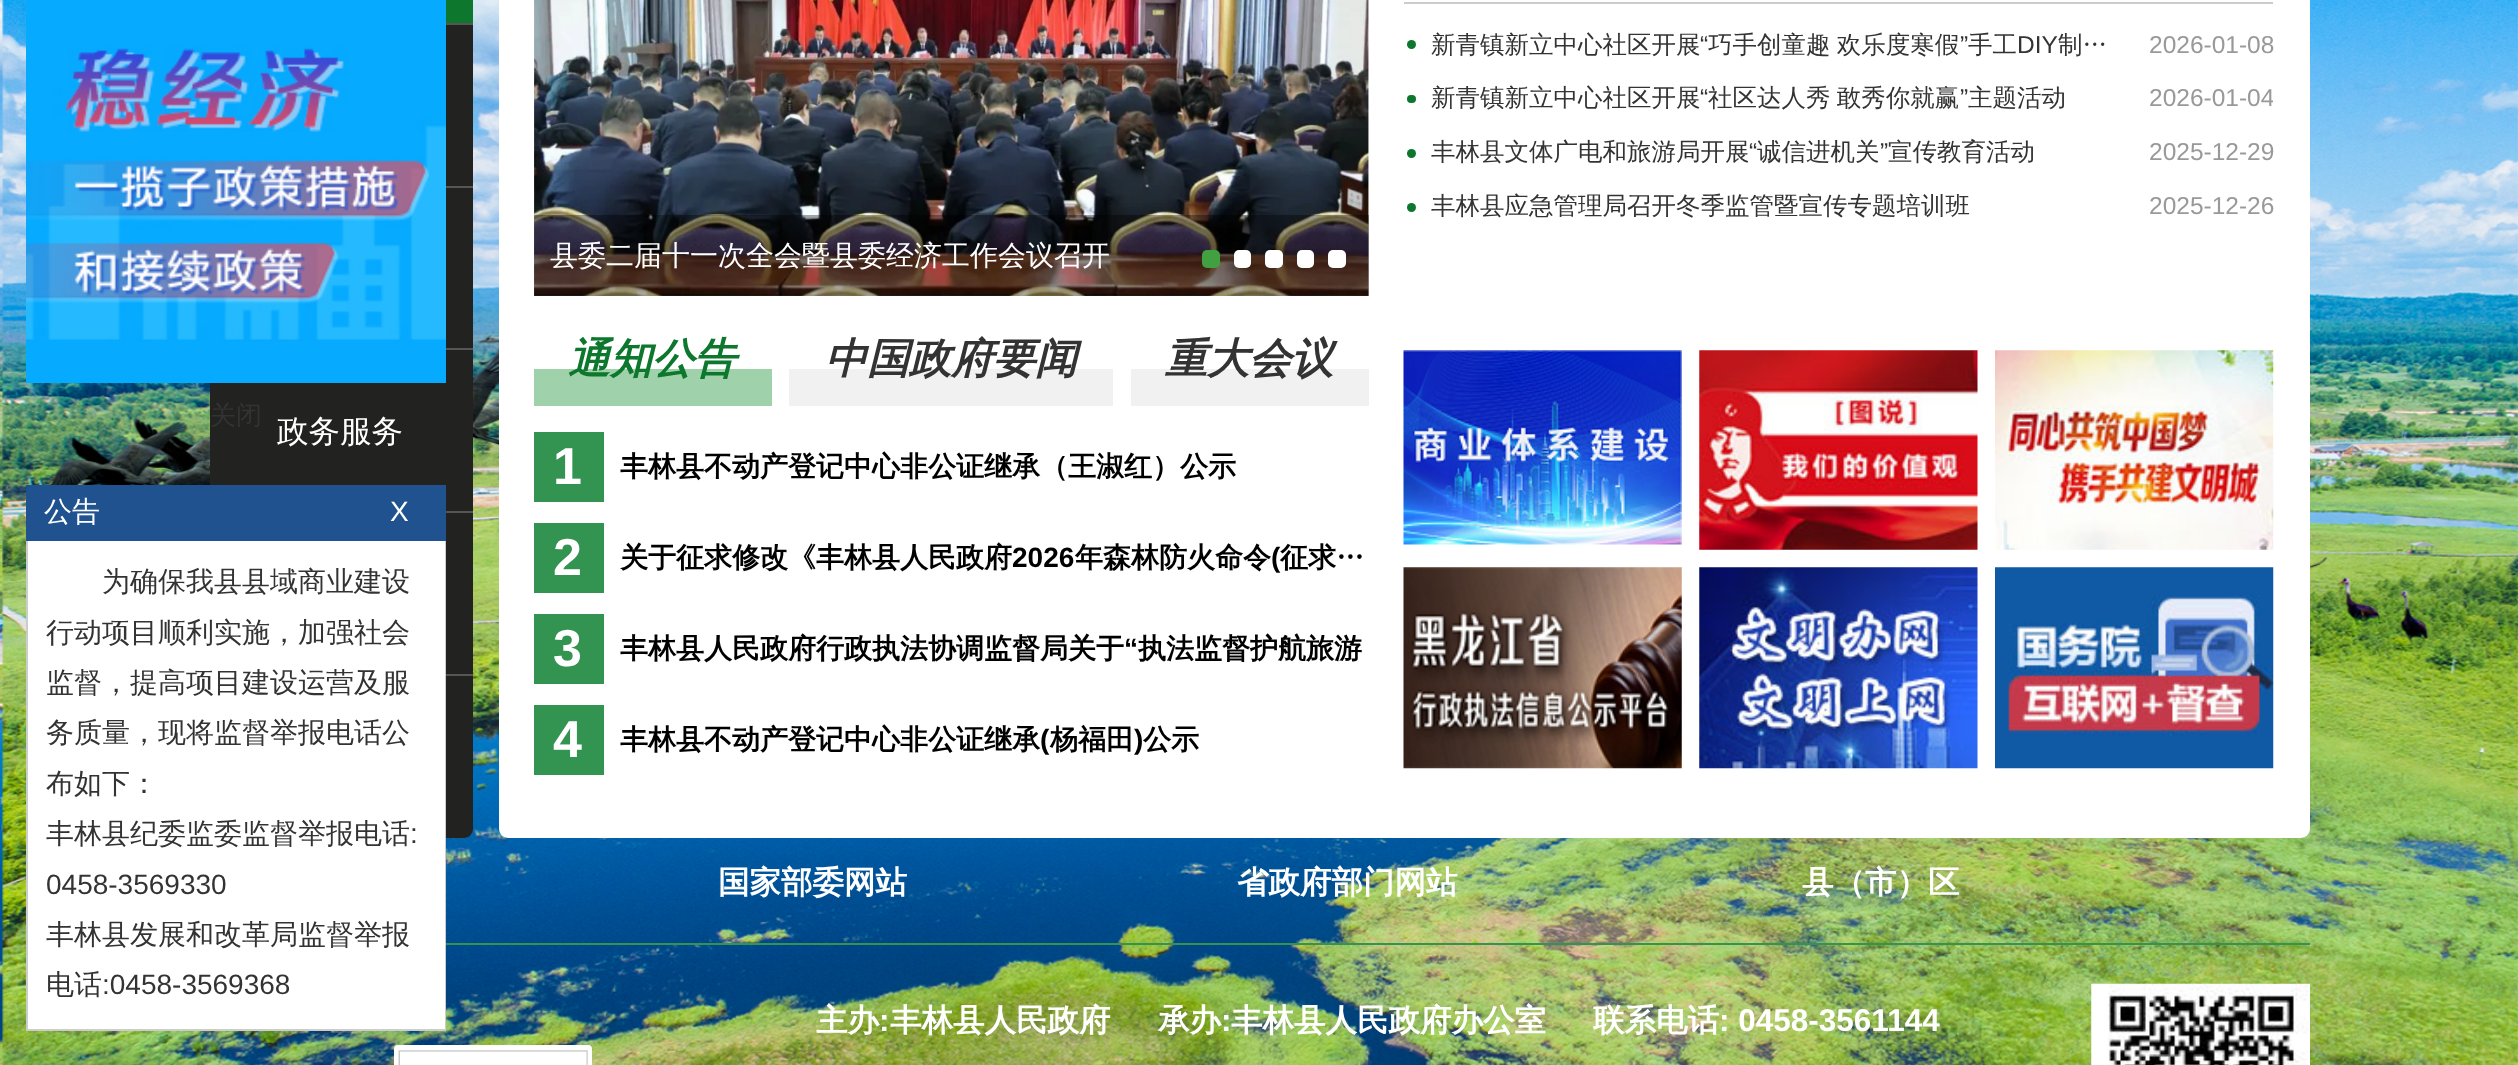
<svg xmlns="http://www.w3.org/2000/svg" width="2518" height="1065">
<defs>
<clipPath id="clip1"><rect x="166" y="399" width="140" height="28"/></clipPath>
<clipPath id="clip2"><rect x="1404" y="79" width="869" height="38"/></clipPath>
</defs>
<rect width="100%" height="100%" fill="#fff"/>
<image x="0" y="0" width="2518" height="1065" href="media/1.png"/>
<rect x="210" y="-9" width="263" height="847" rx="9" fill="#222321"/>
<image x="26" y="0" width="420" height="383" href="media/2.png"/>
<g clip-path="url(#clip1)">
<text x="210" y="424" style="font-family:WenQuanYi Zen Hei;font-size:26px;font-weight:500;fill:#333">关闭</text>
</g>
<rect x="26" y="485" width="420" height="56" fill="#1f528f"/>
<text x="44" y="521" style="font-family:WenQuanYi Zen Hei;font-size:28px;font-weight:500;fill:#fff">公告</text>
<text x="390" y="521" style="font-family:Liberation Sans;font-size:28px;fill:#fff">X</text>
<rect x="28" y="541" width="417" height="488" fill="#fff"/>
<rect x="445" y="541" width="1" height="490" fill="#ccc"/>
<rect x="26" y="1029" width="420" height="2" fill="#ccc"/>
<rect x="26" y="541" width="2" height="490" fill="#ccc"/>
<text x="102" y="591" style="font-family:WenQuanYi Zen Hei;font-size:28px;font-weight:500;fill:#333">为确保我县县域商业建设</text>
<text x="46" y="642" style="font-family:WenQuanYi Zen Hei;font-size:28px;font-weight:500;fill:#333">行动项目顺利实施，加强社会</text>
<text x="46" y="692" style="font-family:WenQuanYi Zen Hei;font-size:28px;font-weight:500;fill:#333">监督，提高项目建设运营及服</text>
<text x="46" y="742" style="font-family:WenQuanYi Zen Hei;font-size:28px;font-weight:500;fill:#333">务质量，现将监督举报电话公</text>
<text x="46" y="793" style="font-family:WenQuanYi Zen Hei;font-size:28px;font-weight:500;fill:#333">布如下：</text>
<text x="46" y="843" style="font-family:WenQuanYi Zen Hei;font-size:28px;font-weight:500;fill:#333">丰林县纪委监委监督举报电话</text>
<text x="410" y="843" style="font-family:Liberation Sans;font-size:28px;fill:#333">:</text>
<text x="46" y="894" style="font-family:Liberation Sans;font-size:28px;fill:#333">0458-3569330</text>
<text x="46" y="944" style="font-family:WenQuanYi Zen Hei;font-size:28px;font-weight:500;fill:#333">丰林县发展和改革局监督举报</text>
<text x="46" y="994" style="font-family:WenQuanYi Zen Hei;font-size:28px;font-weight:500;fill:#333">电话</text>
<text x="102" y="994" style="font-family:Liberation Sans;font-size:28px;fill:#333">:0458-3569368</text>
<rect x="446" width="27" height="23" fill="#0c772d"/>
<rect x="446" y="23" width="27" height="2" fill="#555"/>
<rect x="446" y="186" width="27" height="2" fill="#555"/>
<rect x="446" y="348" width="27" height="2" fill="#555"/>
<text x="277" y="442" style="font-family:WenQuanYi Zen Hei;font-size:31.5px;font-weight:500;fill:#fff">政务服务</text>
<rect x="446" y="511" width="27" height="2" fill="#555"/>
<rect x="446" y="674" width="27" height="2" fill="#555"/>
<rect x="499" y="-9" width="1811" height="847" rx="9" fill="#fff"/>
<rect x="1404" y="2" width="869" height="2" fill="#ccc"/>
<circle cx="1411.5" cy="44.5" r="4.5" fill="#0d772d"/>
<text x="1431" y="53" style="font-family:WenQuanYi Zen Hei;font-size:24.5px;font-weight:500;fill:#333">新青镇新立中心社区开展</text>
<text x="1700" y="53" style="font-family:Liberation Sans;font-size:24.5px;fill:#333">“</text>
<text x="1708" y="53" word-spacing="-1" style="font-family:WenQuanYi Zen Hei;font-size:24.5px;font-weight:500;fill:#333">巧手创童趣 欢乐度寒假</text>
<text x="1960" y="53" style="font-family:Liberation Sans;font-size:24.5px;fill:#333">”</text>
<text x="1968" y="53" style="font-family:WenQuanYi Zen Hei;font-size:24.5px;font-weight:500;fill:#333">手工</text>
<text x="2017" y="53" style="font-family:Liberation Sans;font-size:24.5px;fill:#333">DIY</text>
<text x="2058" y="53" style="font-family:WenQuanYi Zen Hei;font-size:24.5px;font-weight:500;fill:#333">制…</text>
<text x="2149" y="53" style="font-family:Liberation Sans;font-size:24.5px;fill:#999">2026-01-08</text>
<text x="1431" y="106" style="font-family:WenQuanYi Zen Hei;font-size:24.5px;font-weight:500;fill:#333">新青镇新立中心社区开展</text>
<text x="1700" y="106" style="font-family:Liberation Sans;font-size:24.5px;fill:#333">“</text>
<text x="1708" y="106" word-spacing="-1" style="font-family:WenQuanYi Zen Hei;font-size:24.5px;font-weight:500;fill:#333">社区达人秀 敢秀你就赢</text>
<text x="1960" y="106" style="font-family:Liberation Sans;font-size:24.5px;fill:#333">”</text>
<text x="1968" y="106" style="font-family:WenQuanYi Zen Hei;font-size:24.5px;font-weight:500;fill:#333">主题活动</text>
<rect x="1407" y="95" width="9" height="8" rx="4" fill="#0d772d"/>
<g clip-path="url(#clip2)">
<text x="2149" y="106" style="font-family:Liberation Sans;font-size:24.5px;fill:#999">2026-01-04</text>
</g>
<text x="1431" y="160" style="font-family:WenQuanYi Zen Hei;font-size:24.5px;font-weight:500;fill:#333">丰林县文体广电和旅游局开展</text>
<text x="1749" y="160" style="font-family:Liberation Sans;font-size:24.5px;fill:#333">“</text>
<text x="1757" y="160" style="font-family:WenQuanYi Zen Hei;font-size:24.5px;font-weight:500;fill:#333">诚信进机关</text>
<text x="1880" y="160" style="font-family:Liberation Sans;font-size:24.5px;fill:#333">”</text>
<text x="1888" y="160" style="font-family:WenQuanYi Zen Hei;font-size:24.5px;font-weight:500;fill:#333">宣传教育活动</text>
<circle cx="1411.5" cy="153.5" r="4.5" fill="#0d772d"/>
<text x="2149" y="160" style="font-family:Liberation Sans;font-size:24.5px;fill:#999">2025-12-29</text>
<circle cx="1411.5" cy="207.5" r="4.5" fill="#0d772d"/>
<text x="1431" y="214" style="font-family:WenQuanYi Zen Hei;font-size:24.5px;font-weight:500;fill:#333">丰林县应急管理局召开冬季监管暨宣传专题培训班</text>
<text x="2149" y="214" style="font-family:Liberation Sans;font-size:24.5px;fill:#999">2025-12-26</text>
<image x="1403" y="350" width="279" height="195" href="media/3.png"/>
<image x="1699" y="350" width="279" height="200" href="media/4.png"/>
<image x="1995" y="350" width="279" height="200" href="media/5.png"/>
<image x="1403" y="567" width="279" height="202" href="media/6.png"/>
<image x="1699" y="567" width="279" height="202" href="media/7.png"/>
<image x="1995" y="567" width="279" height="202" href="media/8.png"/>
<image x="534" y="0" width="835" height="296" href="media/9.png"/>
<rect x="534" y="215" width="835" height="81" fill="#00000059"/>
<text x="550" y="265" style="font-family:WenQuanYi Zen Hei;font-size:28px;font-weight:500;fill:#fff">县委二届十一次全会暨县委经济工作会议召开</text>
<rect x="1202" y="250" width="18" height="18" rx="5" fill="#41a140"/>
<rect x="1234" y="250" width="17" height="18" rx="5" fill="#fff"/>
<rect x="1265" y="250" width="18" height="18" rx="5" fill="#fff"/>
<rect x="1297" y="250" width="17" height="18" rx="5" fill="#fff"/>
<rect x="1328" y="250" width="18" height="18" rx="5" fill="#fff"/>
<rect x="534" y="369" width="238" height="37" fill="#9fd2ab"/>
<text x="568" y="373" style="font-family:WenQuanYi Zen Hei;font-size:42px;font-weight:bold;font-style:italic;fill:#0c772d">通知公告</text>
<rect x="789" y="369" width="324" height="37" fill="#f1f1f1"/>
<text x="825" y="373" style="font-family:WenQuanYi Zen Hei;font-size:42px;font-weight:bold;font-style:italic;fill:#333">中国政府要闻</text>
<rect x="1131" y="369" width="238" height="37" fill="#f1f1f1"/>
<text x="1165" y="373" style="font-family:WenQuanYi Zen Hei;font-size:42px;font-weight:bold;font-style:italic;fill:#333">重大会议</text>
<rect x="534" y="432" width="70" height="70" fill="#339351"/>
<text x="553" y="484" style="font-family:Liberation Sans;font-size:52px;font-weight:bold;fill:#fff">1</text>
<text x="620" y="476" style="font-family:WenQuanYi Zen Hei;font-size:28px;font-weight:bold;fill:#000">丰林县不动产登记中心非公证继承（王淑红）公示</text>
<rect x="534" y="523" width="70" height="70" fill="#339351"/>
<text x="553" y="575" style="font-family:Liberation Sans;font-size:52px;font-weight:bold;fill:#fff">2</text>
<text x="620" y="567" style="font-family:WenQuanYi Zen Hei;font-size:28px;font-weight:bold;fill:#000">关于征求修改《丰林县人民政府</text>
<text x="1012" y="567" style="font-family:Liberation Sans;font-size:28px;font-weight:bold;fill:#000">2026</text>
<text x="1075" y="567" style="font-family:WenQuanYi Zen Hei;font-size:28px;font-weight:bold;fill:#000">年森林防火命令</text>
<text x="1271" y="567" style="font-family:Liberation Sans;font-size:28px;font-weight:bold;fill:#000">(</text>
<text x="1280" y="567" style="font-family:WenQuanYi Zen Hei;font-size:28px;font-weight:bold;fill:#000">征求…</text>
<rect x="534" y="614" width="70" height="70" fill="#339351"/>
<text x="553" y="666" style="font-family:Liberation Sans;font-size:52px;font-weight:bold;fill:#fff">3</text>
<text x="620" y="658" style="font-family:WenQuanYi Zen Hei;font-size:28px;font-weight:bold;fill:#000">丰林县人民政府行政执法协调监督局关于</text>
<text x="1124" y="658" style="font-family:Liberation Sans;font-size:28px;font-weight:bold;fill:#000">“</text>
<text x="1138" y="658" style="font-family:WenQuanYi Zen Hei;font-size:28px;font-weight:bold;fill:#000">执法监督护航旅游</text>
<rect x="534" y="705" width="70" height="70" fill="#339351"/>
<text x="553" y="757" style="font-family:Liberation Sans;font-size:52px;font-weight:bold;fill:#fff">4</text>
<text x="620" y="749" style="font-family:WenQuanYi Zen Hei;font-size:28px;font-weight:bold;fill:#000">丰林县不动产登记中心非公证继承</text>
<text x="1040" y="749" style="font-family:Liberation Sans;font-size:28px;font-weight:bold;fill:#000">(</text>
<text x="1050" y="749" style="font-family:WenQuanYi Zen Hei;font-size:28px;font-weight:bold;fill:#000">杨福田</text>
<text x="1134" y="749" style="font-family:Liberation Sans;font-size:28px;font-weight:bold;fill:#000">)</text>
<text x="1143" y="749" style="font-family:WenQuanYi Zen Hei;font-size:28px;font-weight:bold;fill:#000">公示</text>
<rect x="446" y="943" width="1864" height="2" fill="#339351"/>
<text x="718" y="893" style="font-family:WenQuanYi Zen Hei;font-size:31.5px;font-weight:bold;fill:#fff">国家部委网站</text>
<text x="1237" y="893" style="font-family:WenQuanYi Zen Hei;font-size:31.5px;font-weight:bold;fill:#fff">省政府部门网站</text>
<text x="1802" y="893" style="font-family:WenQuanYi Zen Hei;font-size:31.5px;font-weight:bold;fill:#fff">县（市）区</text>
<text x="816" y="1031" style="font-family:WenQuanYi Zen Hei;font-size:31.5px;font-weight:bold;fill:#fff">主办</text>
<text x="879" y="1031" style="font-family:Liberation Sans;font-size:31.5px;font-weight:bold;fill:#fff">:</text>
<text x="890" y="1031" style="font-family:WenQuanYi Zen Hei;font-size:31.5px;font-weight:bold;fill:#fff">丰林县人民政府</text>
<text x="1158" y="1031" style="font-family:WenQuanYi Zen Hei;font-size:31.5px;font-weight:bold;fill:#fff">承办</text>
<text x="1221" y="1031" style="font-family:Liberation Sans;font-size:31.5px;font-weight:bold;fill:#fff">:</text>
<text x="1231" y="1031" style="font-family:WenQuanYi Zen Hei;font-size:31.5px;font-weight:bold;fill:#fff">丰林县人民政府办公室</text>
<text x="1593" y="1031" style="font-family:WenQuanYi Zen Hei;font-size:31.5px;font-weight:bold;fill:#fff">联系电话</text>
<text x="1719" y="1031" style="font-family:Liberation Sans;font-size:31.5px;font-weight:bold;fill:#fff">: 0458-3561144</text>
<image x="2091" y="983" width="219" height="82" href="media/10.png"/>
<rect x="394" y="1045" width="198" height="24" rx="4" fill="#fff"/>
<image x="398" y="1050" width="190" height="15" href="media/11.png"/>
</svg>
